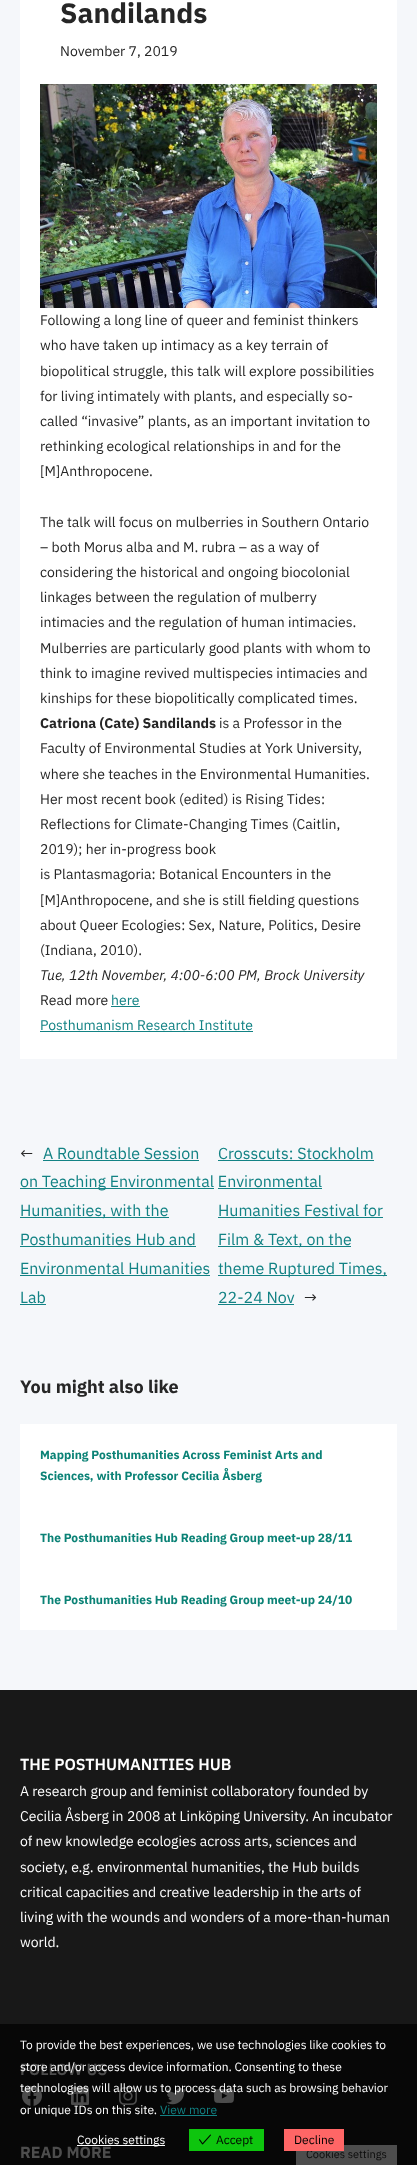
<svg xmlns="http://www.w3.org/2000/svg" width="417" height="2165">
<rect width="100%" height="100%" fill="#f5f7fa"/>
<rect x="20" width="377" height="1059" fill="#fff"/>
<text x="60" y="23" style="font-family:IBM Plex Sans;font-size:28px;font-weight:bold;fill:#262626">Sandilands</text>
<text x="60" y="56" style="font-family:IBM Plex Sans;font-size:14px;fill:#262626">November 7, 2019</text>
<image x="40" y="84" width="337" height="224" href="media/1.png"/>
<text x="40" y="325" style="font-family:IBM Plex Sans;font-size:14px;fill:#262626">Following a long line of queer and feminist thinkers</text>
<text x="40" y="350" style="font-family:IBM Plex Sans;font-size:14px;fill:#262626">who have taken up intimacy as a key terrain of</text>
<text x="40" y="376" style="font-family:IBM Plex Sans;font-size:14px;fill:#262626">biopolitical struggle, this talk will explore possibilities</text>
<text x="40" y="401" style="font-family:IBM Plex Sans;font-size:14px;fill:#262626">for living intimately with plants, and especially so-</text>
<text x="40" y="426" style="font-family:IBM Plex Sans;font-size:14px;fill:#262626">called “invasive” plants, as an important invitation to</text>
<text x="40" y="451" style="font-family:IBM Plex Sans;font-size:14px;fill:#262626">rethinking ecological relationships in and for the</text>
<text x="40" y="476" style="font-family:IBM Plex Sans;font-size:14px;fill:#262626">[M]Anthropocene.</text>
<text x="40" y="527" style="font-family:IBM Plex Sans;font-size:14px;fill:#262626">The talk will focus on mulberries in Southern Ontario</text>
<text x="40" y="552" style="font-family:IBM Plex Sans;font-size:14px;fill:#262626">– both Morus alba and M. rubra – as a way of</text>
<text x="40" y="577" style="font-family:IBM Plex Sans;font-size:14px;fill:#262626">considering the historical and ongoing biocolonial</text>
<text x="40" y="602" style="font-family:IBM Plex Sans;font-size:14px;fill:#262626">linkages between the regulation of mulberry</text>
<text x="40" y="627" style="font-family:IBM Plex Sans;font-size:14px;fill:#262626">intimacies and the regulation of human intimacies.</text>
<text x="40" y="653" style="font-family:IBM Plex Sans;font-size:14px;fill:#262626">Mulberries are particularly good plants with whom to</text>
<text x="40" y="678" style="font-family:IBM Plex Sans;font-size:14px;fill:#262626">think to imagine revived multispecies intimacies and</text>
<text x="40" y="703" style="font-family:IBM Plex Sans;font-size:14px;fill:#262626">kinships for these biopolitically complicated times.</text>
<text x="40" y="728" style="font-family:IBM Plex Sans;font-size:14px;font-weight:bold;fill:#262626">Catriona (Cate) Sandilands</text>
<text x="219" y="728" style="font-family:IBM Plex Sans;font-size:14px;fill:#262626">is a Professor in the</text>
<text x="40" y="753" style="font-family:IBM Plex Sans;font-size:14px;fill:#262626">Faculty of Environmental Studies at York University,</text>
<text x="40" y="779" style="font-family:IBM Plex Sans;font-size:14px;fill:#262626">where she teaches in the Environmental Humanities.</text>
<text x="40" y="804" style="font-family:IBM Plex Sans;font-size:14px;fill:#262626">Her most recent book (edited) is Rising Tides:</text>
<text x="40" y="829" style="font-family:IBM Plex Sans;font-size:14px;fill:#262626">Reflections for Climate-Changing Times (Caitlin,</text>
<text x="40" y="854" style="font-family:IBM Plex Sans;font-size:14px;fill:#262626">2019); her in-progress book</text>
<text x="40" y="879" style="font-family:IBM Plex Sans;font-size:14px;fill:#262626">is Plantasmagoria: Botanical Encounters in the</text>
<text x="40" y="905" style="font-family:IBM Plex Sans;font-size:14px;fill:#262626">[M]Anthropocene, and she is still fielding questions</text>
<text x="40" y="930" style="font-family:IBM Plex Sans;font-size:14px;fill:#262626">about Queer Ecologies: Sex, Nature, Politics, Desire</text>
<text x="40" y="955" style="font-family:IBM Plex Sans;font-size:14px;fill:#262626">(Indiana, 2010).</text>
<text x="40" y="980" style="font-family:IBM Plex Sans;font-size:14px;font-style:italic;fill:#262626">Tue, 12th November, 4:00-6:00 PM, Brock University</text>
<text x="40" y="1005" style="font-family:IBM Plex Sans;font-size:14px;fill:#262626">Read more</text>
<text x="111" y="1005" style="font-family:IBM Plex Sans;font-size:14px;fill:#128284">here</text>
<rect x="111" y="1006" width="29" height="1" fill="#128284"/>
<text x="40" y="1030" style="font-family:IBM Plex Sans;font-size:14px;fill:#128284">Posthumanism Research Institute</text>
<rect x="40" y="1031" width="213" height="1" fill="#128284"/>
<text x="20" y="1159" style="font-family:IBM Plex Sans;font-size:16px;fill:#262626">←</text>
<text x="43" y="1159" style="font-family:IBM Plex Sans;font-size:16px;fill:#128284">A Roundtable Session</text>
<rect x="43" y="1160" width="156" height="1" fill="#128284"/>
<rect x="20" y="1188" width="194" height="1" fill="#128284"/>
<text x="20" y="1187" style="font-family:IBM Plex Sans;font-size:16px;fill:#128284">on Teaching Environmental Environmental</text>
<rect x="20" y="1217" width="149" height="1" fill="#128284"/>
<text x="20" y="1216" style="font-family:IBM Plex Sans;font-size:16px;fill:#128284">Humanities, with the</text>
<text x="20" y="1245" style="font-family:IBM Plex Sans;font-size:16px;fill:#128284">Posthumanities Hub and</text>
<rect x="20" y="1246" width="176" height="1" fill="#128284"/>
<text x="20" y="1274" style="font-family:IBM Plex Sans;font-size:16px;fill:#128284">Environmental Humanities</text>
<rect x="20" y="1275" width="190" height="1" fill="#128284"/>
<text x="20" y="1303" style="font-family:IBM Plex Sans;font-size:16px;fill:#128284">Lab</text>
<rect x="20" y="1304" width="26" height="1" fill="#128284"/>
<text x="218" y="1159" style="font-family:IBM Plex Sans;font-size:16px;fill:#128284">Crosscuts: Stockholm</text>
<rect x="218" y="1160" width="156" height="1" fill="#128284"/>
<text x="218" y="1216" style="font-family:IBM Plex Sans;font-size:16px;fill:#128284">Humanities Festival for</text>
<rect x="218" y="1188" width="104" height="1" fill="#128284"/>
<rect x="218" y="1217" width="165" height="1" fill="#128284"/>
<rect x="218" y="1246" width="133" height="1" fill="#128284"/>
<text x="218" y="1245" style="font-family:IBM Plex Sans;font-size:16px;fill:#128284">Film &amp; Text, on the</text>
<rect x="218" y="1275" width="169" height="1" fill="#128284"/>
<text x="218" y="1274" style="font-family:IBM Plex Sans;font-size:16px;fill:#128284">theme Ruptured Times,</text>
<text x="218" y="1303" style="font-family:IBM Plex Sans;font-size:16px;fill:#128284">22-24 Nov</text>
<rect x="218" y="1304" width="76" height="1" fill="#128284"/>
<text x="304" y="1303" style="font-family:IBM Plex Sans;font-size:16px;fill:#262626">→</text>
<text x="20" y="1393" style="font-family:IBM Plex Sans;font-size:18px;font-weight:bold;fill:#262626">You might also like</text>
<rect x="20" y="1424" width="377" height="206" fill="#fff"/>
<text x="40" y="1459" style="font-family:IBM Plex Sans;font-size:12px;font-weight:bold;fill:#0b8276">Mapping Posthumanities Across Feminist Arts and</text>
<text x="40" y="1480" style="font-family:IBM Plex Sans;font-size:12px;font-weight:bold;fill:#0b8276">Sciences, with Professor Cecilia Åsberg</text>
<text x="40" y="1542" style="font-family:IBM Plex Sans;font-size:12px;font-weight:bold;fill:#0b8276">The Posthumanities Hub Reading Group meet-up 28/11</text>
<text x="40" y="1604" style="font-family:IBM Plex Sans;font-size:12px;font-weight:bold;fill:#0b8276">The Posthumanities Hub Reading Group meet-up 24/10</text>
<rect y="1690" width="417" height="334" fill="#181818"/>
<rect y="2024" width="417" height="141" fill="#070707"/>
<text x="20" y="1770" style="font-family:IBM Plex Sans;font-size:16px;font-weight:600;fill:#fff">THE POSTHUMANITIES HUB</text>
<text x="20" y="1796" style="font-family:IBM Plex Sans;font-size:14px;fill:#fff">A research group and feminist collaboratory founded by</text>
<text x="20" y="1821" style="font-family:IBM Plex Sans;font-size:14px;fill:#fff">Cecilia Åsberg in 2008 at Linköping University. An incubator</text>
<text x="20" y="1846" style="font-family:IBM Plex Sans;font-size:14px;fill:#fff">of new knowledge ecologies across arts, sciences and</text>
<text x="20" y="1872" style="font-family:IBM Plex Sans;font-size:14px;fill:#fff">society, e.g. environmental humanities, the Hub builds</text>
<text x="20" y="1897" style="font-family:IBM Plex Sans;font-size:14px;fill:#fff">critical capacities and creative leadership in the arts of</text>
<text x="20" y="1922" style="font-family:IBM Plex Sans;font-size:14px;fill:#fff">living with the wounds and wonders of a more-than-human</text>
<text x="20" y="1947" style="font-family:IBM Plex Sans;font-size:14px;fill:#fff">world.</text>
<text x="20" y="2075" style="font-family:IBM Plex Sans;font-size:16px;font-weight:600;fill:#4d4d4d">FOLLOW US</text>
<image x="22" y="2086" width="20" height="20" href="media/2.png"/>
<image x="71" y="2087" width="18" height="18" href="media/3.png"/>
<image x="119" y="2087" width="18" height="18" href="media/4.png"/>
<image x="166" y="2088" width="20" height="17" href="media/5.png"/>
<image x="214" y="2089" width="20" height="14" href="media/6.png"/>
<text x="20" y="2158" style="font-family:IBM Plex Sans;font-size:16px;font-weight:bold;fill:#4d4d4d">READ MORE</text>
<text x="20" y="2049" style="font-family:IBM Plex Sans;font-size:12px;fill:#fff">To provide the best experiences, we use technologies like cookies to</text>
<text x="20" y="2071" style="font-family:IBM Plex Sans;font-size:12px;fill:#fff">store and/or access device information. Consenting to these</text>
<text x="20" y="2092" style="font-family:IBM Plex Sans;font-size:12px;fill:#fff">technologies will allow us to process data such as browsing behavior</text>
<text x="20" y="2114" style="font-family:IBM Plex Sans;font-size:12px;fill:#fff">or unique IDs on this site.</text>
<text x="160" y="2114" style="font-family:IBM Plex Sans;font-size:12px;fill:#128284">View more</text>
<rect x="160" y="2115" width="57" height="1" fill="#128284"/>
<rect x="77" y="2145" width="88" height="1" fill="#fff"/>
<text x="77" y="2144" style="font-family:IBM Plex Sans;font-size:12px;fill:#fff">Cookies settings</text>
<rect x="189" y="2129" width="75" height="22" fill="#0ec50e"/>
<image x="199" y="2134" width="12" height="11" href="media/7.png"/>
<text x="216" y="2144" style="font-family:IBM Plex Sans;font-size:12px;fill:#000">Accept</text>
<rect x="296" y="2145" width="101" height="20" fill="#4d4d4d"/>
<text x="306" y="2158" style="font-family:IBM Plex Sans;font-size:11px;fill:#0b0b0b">Cookies settings</text>
<rect x="284" y="2129" width="60" height="22" fill="#f66"/>
<text x="294" y="2144" style="font-family:IBM Plex Sans;font-size:12px;fill:#000">Decline</text>
</svg>
